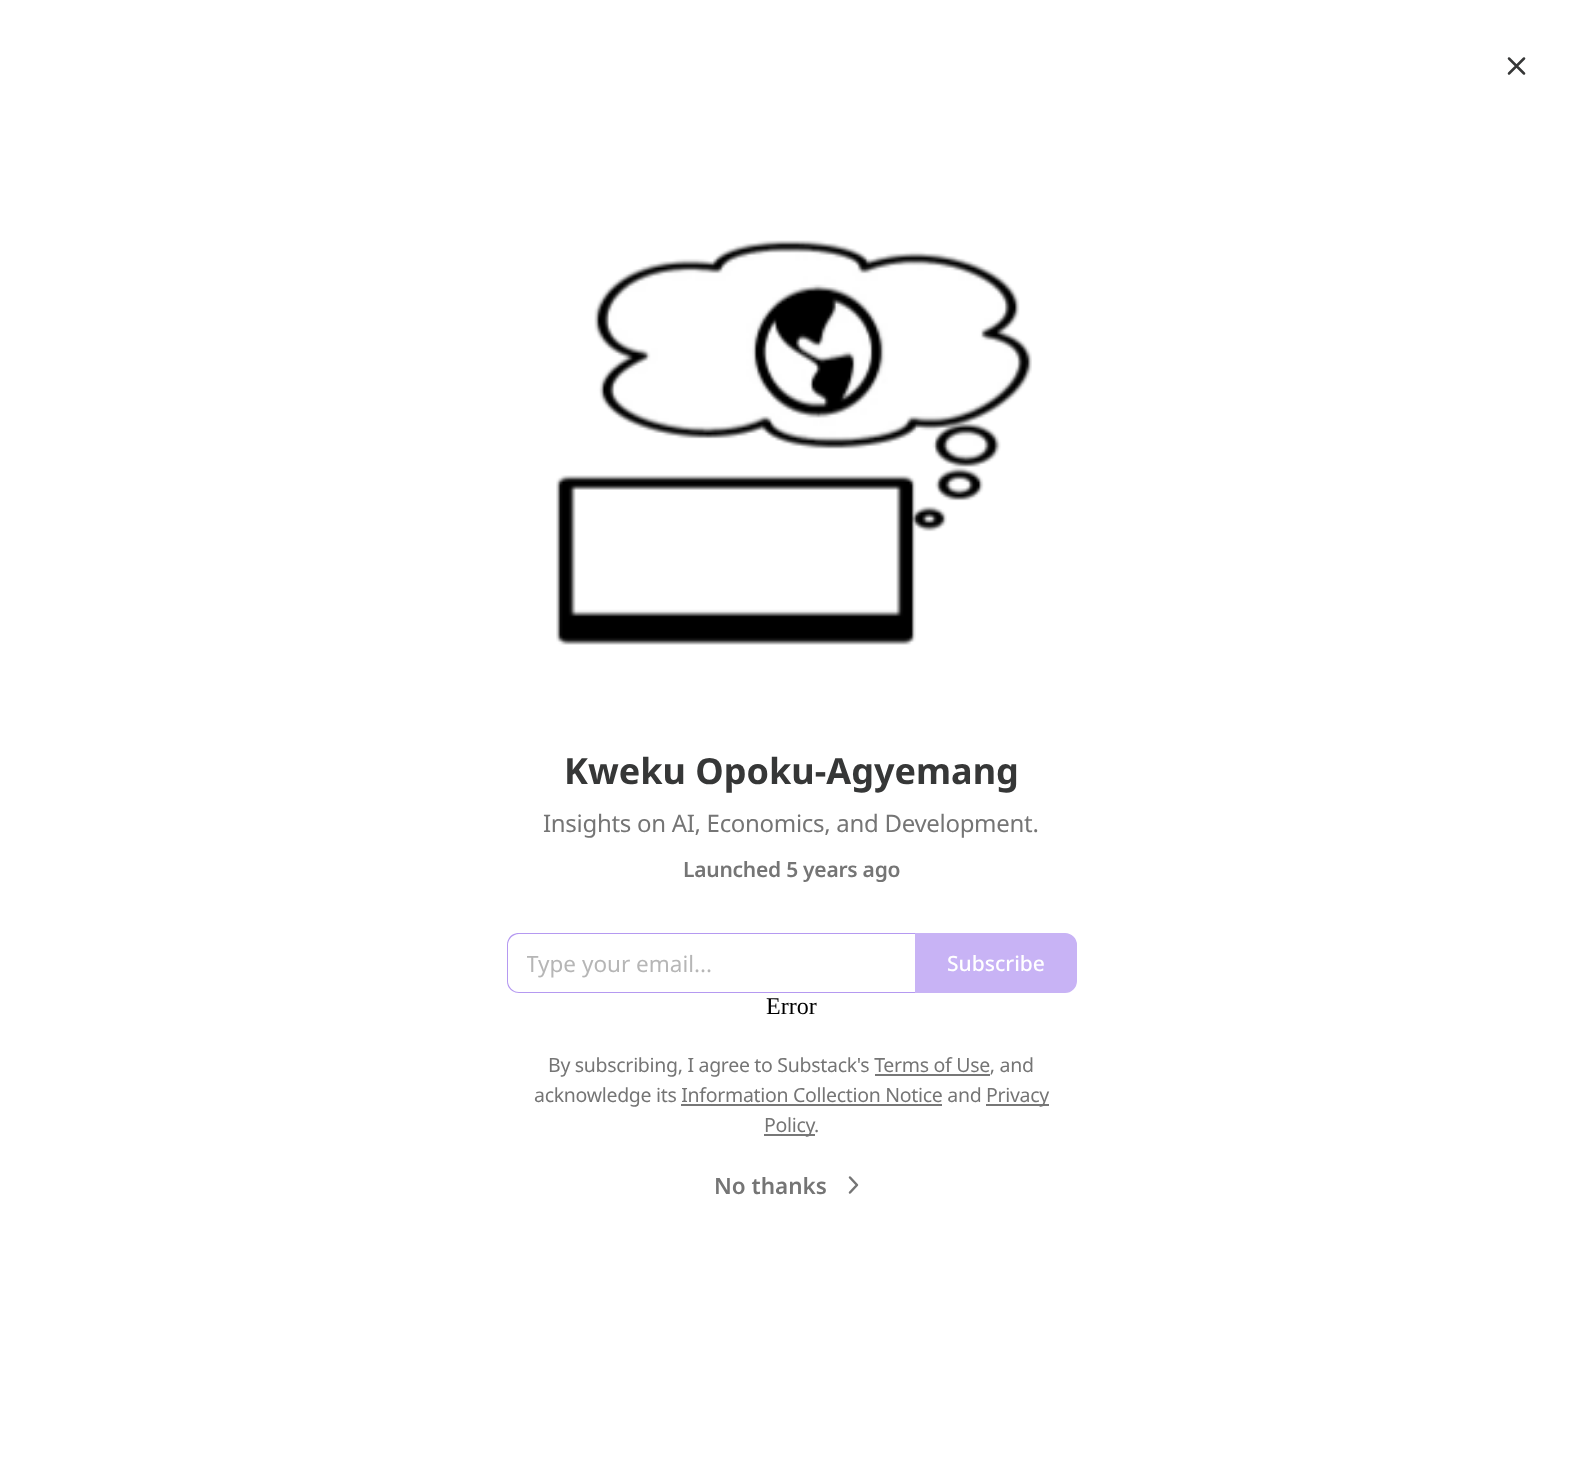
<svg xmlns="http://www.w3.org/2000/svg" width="1582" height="1474">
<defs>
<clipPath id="clip1"><rect x="527" y="948" width="370" height="30"/></clipPath>
</defs>
<rect width="100%" height="100%" fill="#fff"/>
<path d="M1524 58.5l-15 15m0-15l15 15" fill="none" stroke="#363737" stroke-width="2.5" stroke-linecap="round" stroke-linejoin="round"/>
<image x="556" y="240" width="476" height="405" href="media/1.png"/>
<text x="564" y="784" style="font-family:Noto Sans;font-size:36px;font-weight:bold;fill:#363737">Kweku Opoku-Agyemang</text>
<text x="543" y="832" style="font-family:Noto Sans;font-size:24px;letter-spacing:-0.3px;fill:#757575">Insights on AI, Economics, and Development.</text>
<text x="683" y="877" style="font-family:Noto Sans;font-size:21px;font-weight:600;letter-spacing:-0.25px;fill:#757575">Launched 5 years ago</text>
<path d="M519 933h396v60h-396c-7 0-12-5-12-12v-36c0-7 5-12 12-12zm0 1h396v58h-396c-6 0-11-5-11-11v-36c0-6 5-11 11-11z" fill="#b599f1" fill-rule="evenodd"/>
<g clip-path="url(#clip1)">
<text x="526" y="972" style="font-family:Noto Sans;font-size:22.5px;fill:#b6b6b6">Type your email...</text>
</g>
<path d="M916 934h149c6 0 11 5 11 11v36c0 6-5 11-11 11h-149z" fill="#c8b3f5" stroke="#c8b3f5" stroke-width="2"/>
<text x="947" y="971" style="font-family:Noto Sans;font-size:21px;font-weight:500;fill:#fff">Subscribe</text>
<text x="766" y="1014" style="font-family:Liberation Serif;font-size:24px;fill:#000">Error</text>
<text x="548" y="1072" style="font-family:Noto Sans;font-size:19.5px;letter-spacing:-0.3px;fill:#757575">By subscribing, I agree to Substack's Terms of Use, and</text>
<rect x="875" y="1074" width="115" height="2" fill="#777"/>
<text x="534" y="1102" style="font-family:Noto Sans;font-size:19.5px;letter-spacing:-0.3px;fill:#757575">acknowledge its Information Collection Notice and</text>
<rect x="986" y="1104" width="63" height="2" fill="#777"/>
<text x="986" y="1102" style="font-family:Noto Sans;font-size:19.5px;letter-spacing:-0.3px;fill:#757575">Privacy</text>
<rect x="681" y="1104" width="261" height="2" fill="#777"/>
<rect x="764" y="1134" width="51" height="2" fill="#777"/>
<text x="764" y="1132" style="font-family:Noto Sans;font-size:19.5px;letter-spacing:-0.3px;fill:#757575">Policy</text>
<text x="814" y="1132" style="font-family:Noto Sans;font-size:19.5px;letter-spacing:-0.3px;fill:#757575">.</text>
<text x="714" y="1194" style="font-family:Noto Sans;font-size:22.5px;font-weight:600;fill:#757575">No thanks</text>
<path d="M850 1192.5l7-7.5l-7-7.5" fill="none" stroke="#757575" stroke-width="2.5" stroke-linecap="round" stroke-linejoin="round"/>
</svg>
